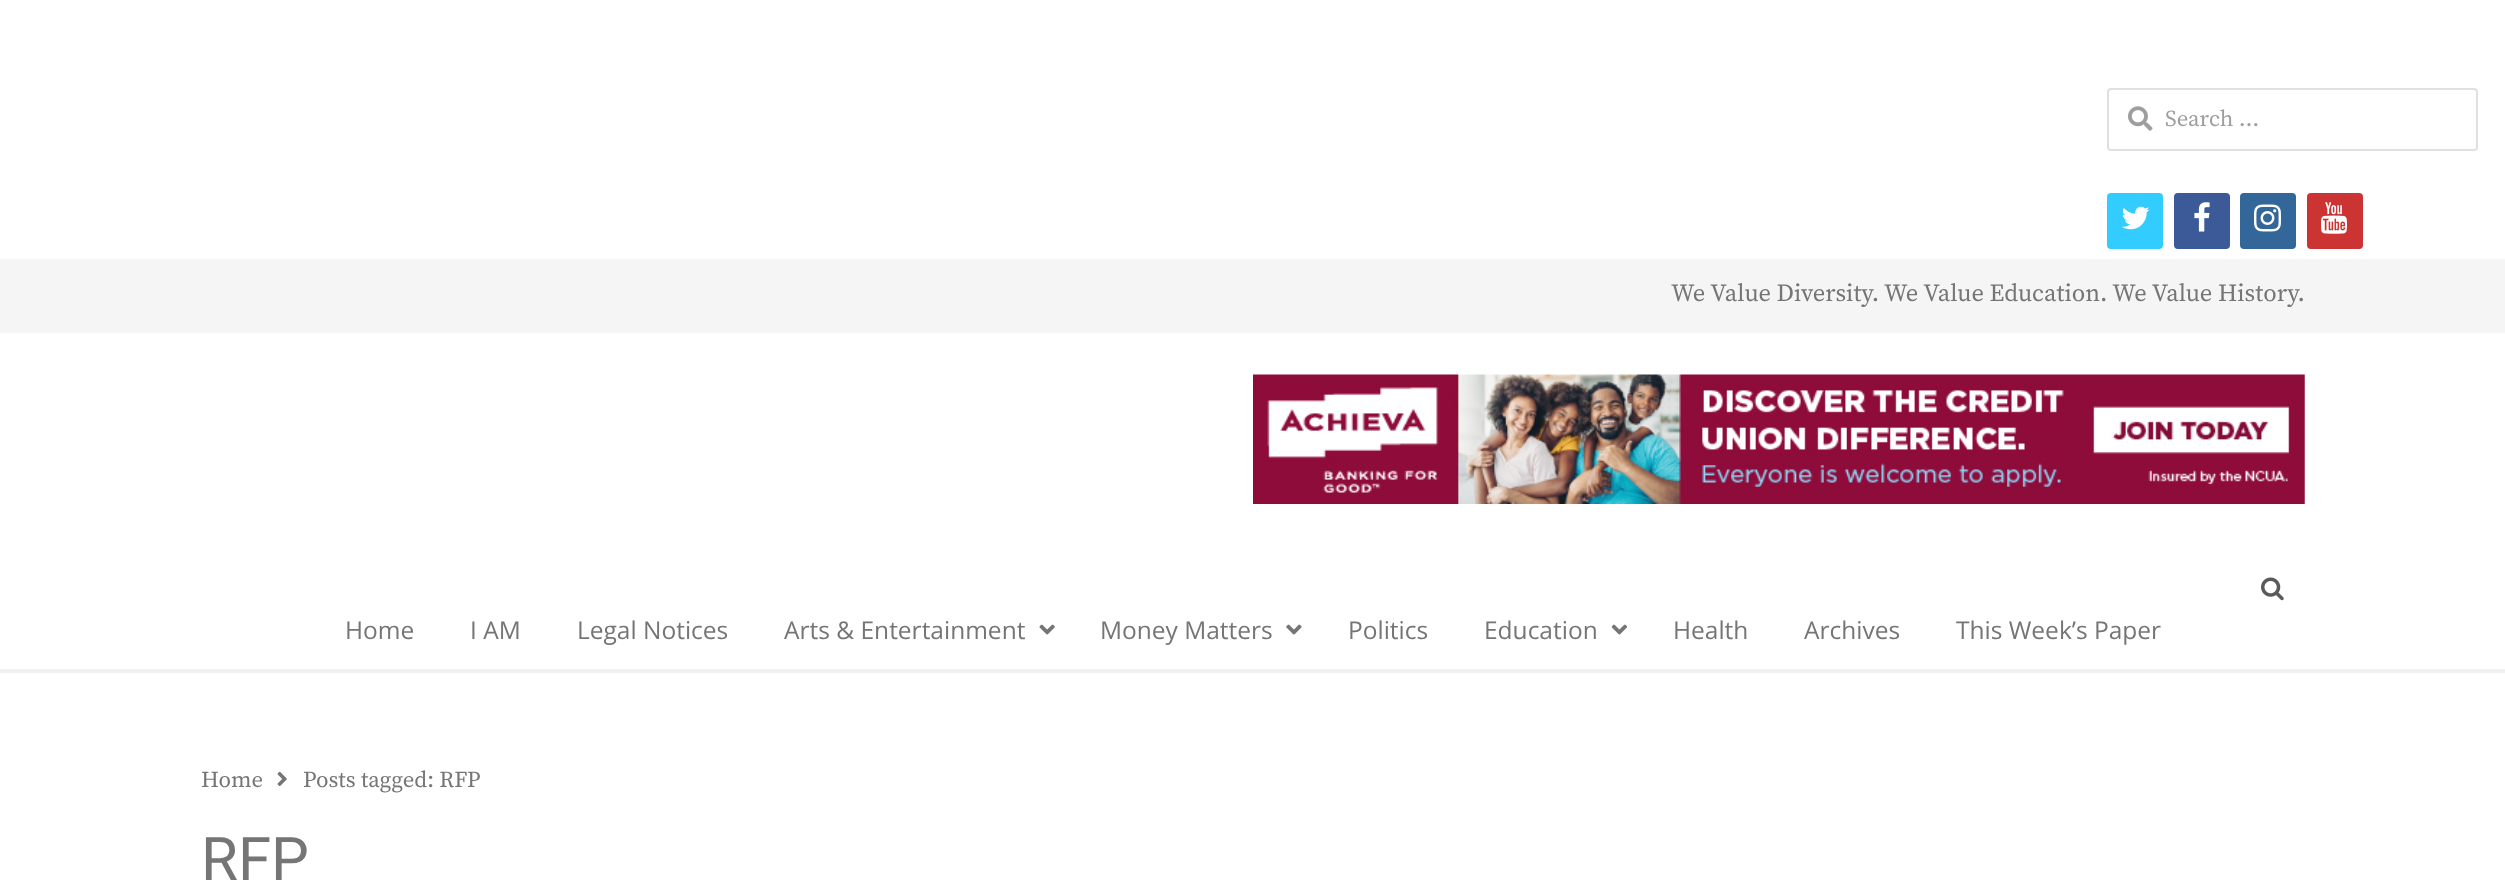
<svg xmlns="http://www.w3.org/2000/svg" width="2505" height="886">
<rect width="100%" height="100%" fill="#fff"/>
<rect x="2108" y="89" width="369" height="61" rx="3" fill="none" stroke="#e0e0e0" stroke-width="2"/>
<image x="2128" y="106" width="25" height="25" href="media/1.png"/>
<text x="2165" y="126" style="font-family:Source Serif Pro;font-size:22.75px;fill:#9e9e9e">Search …</text>
<rect x="2107" y="193" width="56" height="56" rx="4" fill="#3cf"/>
<image x="2122" y="206" width="28" height="24" href="media/2.png"/>
<rect x="2174" y="193" width="56" height="56" rx="4" fill="#3c5a98"/>
<image x="2194" y="202" width="16" height="30" href="media/3.png"/>
<rect x="2240" y="193" width="56" height="56" rx="4" fill="#369"/>
<image x="2254" y="204" width="27" height="28" href="media/4.png"/>
<rect x="2307" y="193" width="56" height="56" rx="4" fill="#c33"/>
<image x="2321" y="202" width="26" height="32" href="media/5.png"/>
<rect y="259" width="2505" height="74" fill="#f5f5f5"/>
<text x="1671" y="301" style="font-family:Source Serif Pro;font-size:24.5px;fill:#757575">We Value Diversity. We Value Education. We Value History.</text>
<image x="1253" y="374" width="1052" height="130" href="media/6.png"/>
<rect y="669" width="2505" height="4" fill="#f0f0f0"/>
<image x="2261" y="577" width="23" height="24" href="media/7.png"/>
<text x="345" y="639" style="font-family:Open Sans;font-size:24.5px;fill:#757575">Home</text>
<text x="470" y="639" style="font-family:Open Sans;font-size:24.5px;fill:#757575">I AM</text>
<text x="577" y="639" style="font-family:Open Sans;font-size:24.5px;fill:#757575">Legal Notices</text>
<text x="784" y="639" style="font-family:Open Sans;font-size:24.5px;fill:#757575">Arts &amp; Entertainment</text>
<image x="1039" y="624" width="16" height="11" href="media/8.png"/>
<text x="1100" y="639" style="font-family:Open Sans;font-size:24.5px;fill:#757575">Money Matters</text>
<image x="1286" y="624" width="16" height="11" href="media/9.png"/>
<text x="1348" y="639" style="font-family:Open Sans;font-size:24.5px;fill:#757575">Politics</text>
<text x="1484" y="639" style="font-family:Open Sans;font-size:24.5px;fill:#757575">Education</text>
<image x="1611" y="624" width="16" height="11" href="media/10.png"/>
<text x="1673" y="639" style="font-family:Open Sans;font-size:24.5px;fill:#757575">Health</text>
<text x="1804" y="639" style="font-family:Open Sans;font-size:24.5px;fill:#757575">Archives</text>
<text x="1956" y="639" style="font-family:Open Sans;font-size:24.5px;fill:#757575">This Week’s Paper</text>
<text x="201" y="787" style="font-family:Source Serif Pro;font-size:22.75px;fill:#757575">Home</text>
<image x="277" y="771" width="10" height="16" href="media/11.png"/>
<text x="303" y="787" style="font-family:Source Serif Pro;font-size:22.75px;fill:#757575">Posts tagged: RFP</text>
<text x="201" y="880" style="font-family:Heebo;font-size:60px;fill:#757575">RFP</text>
</svg>
